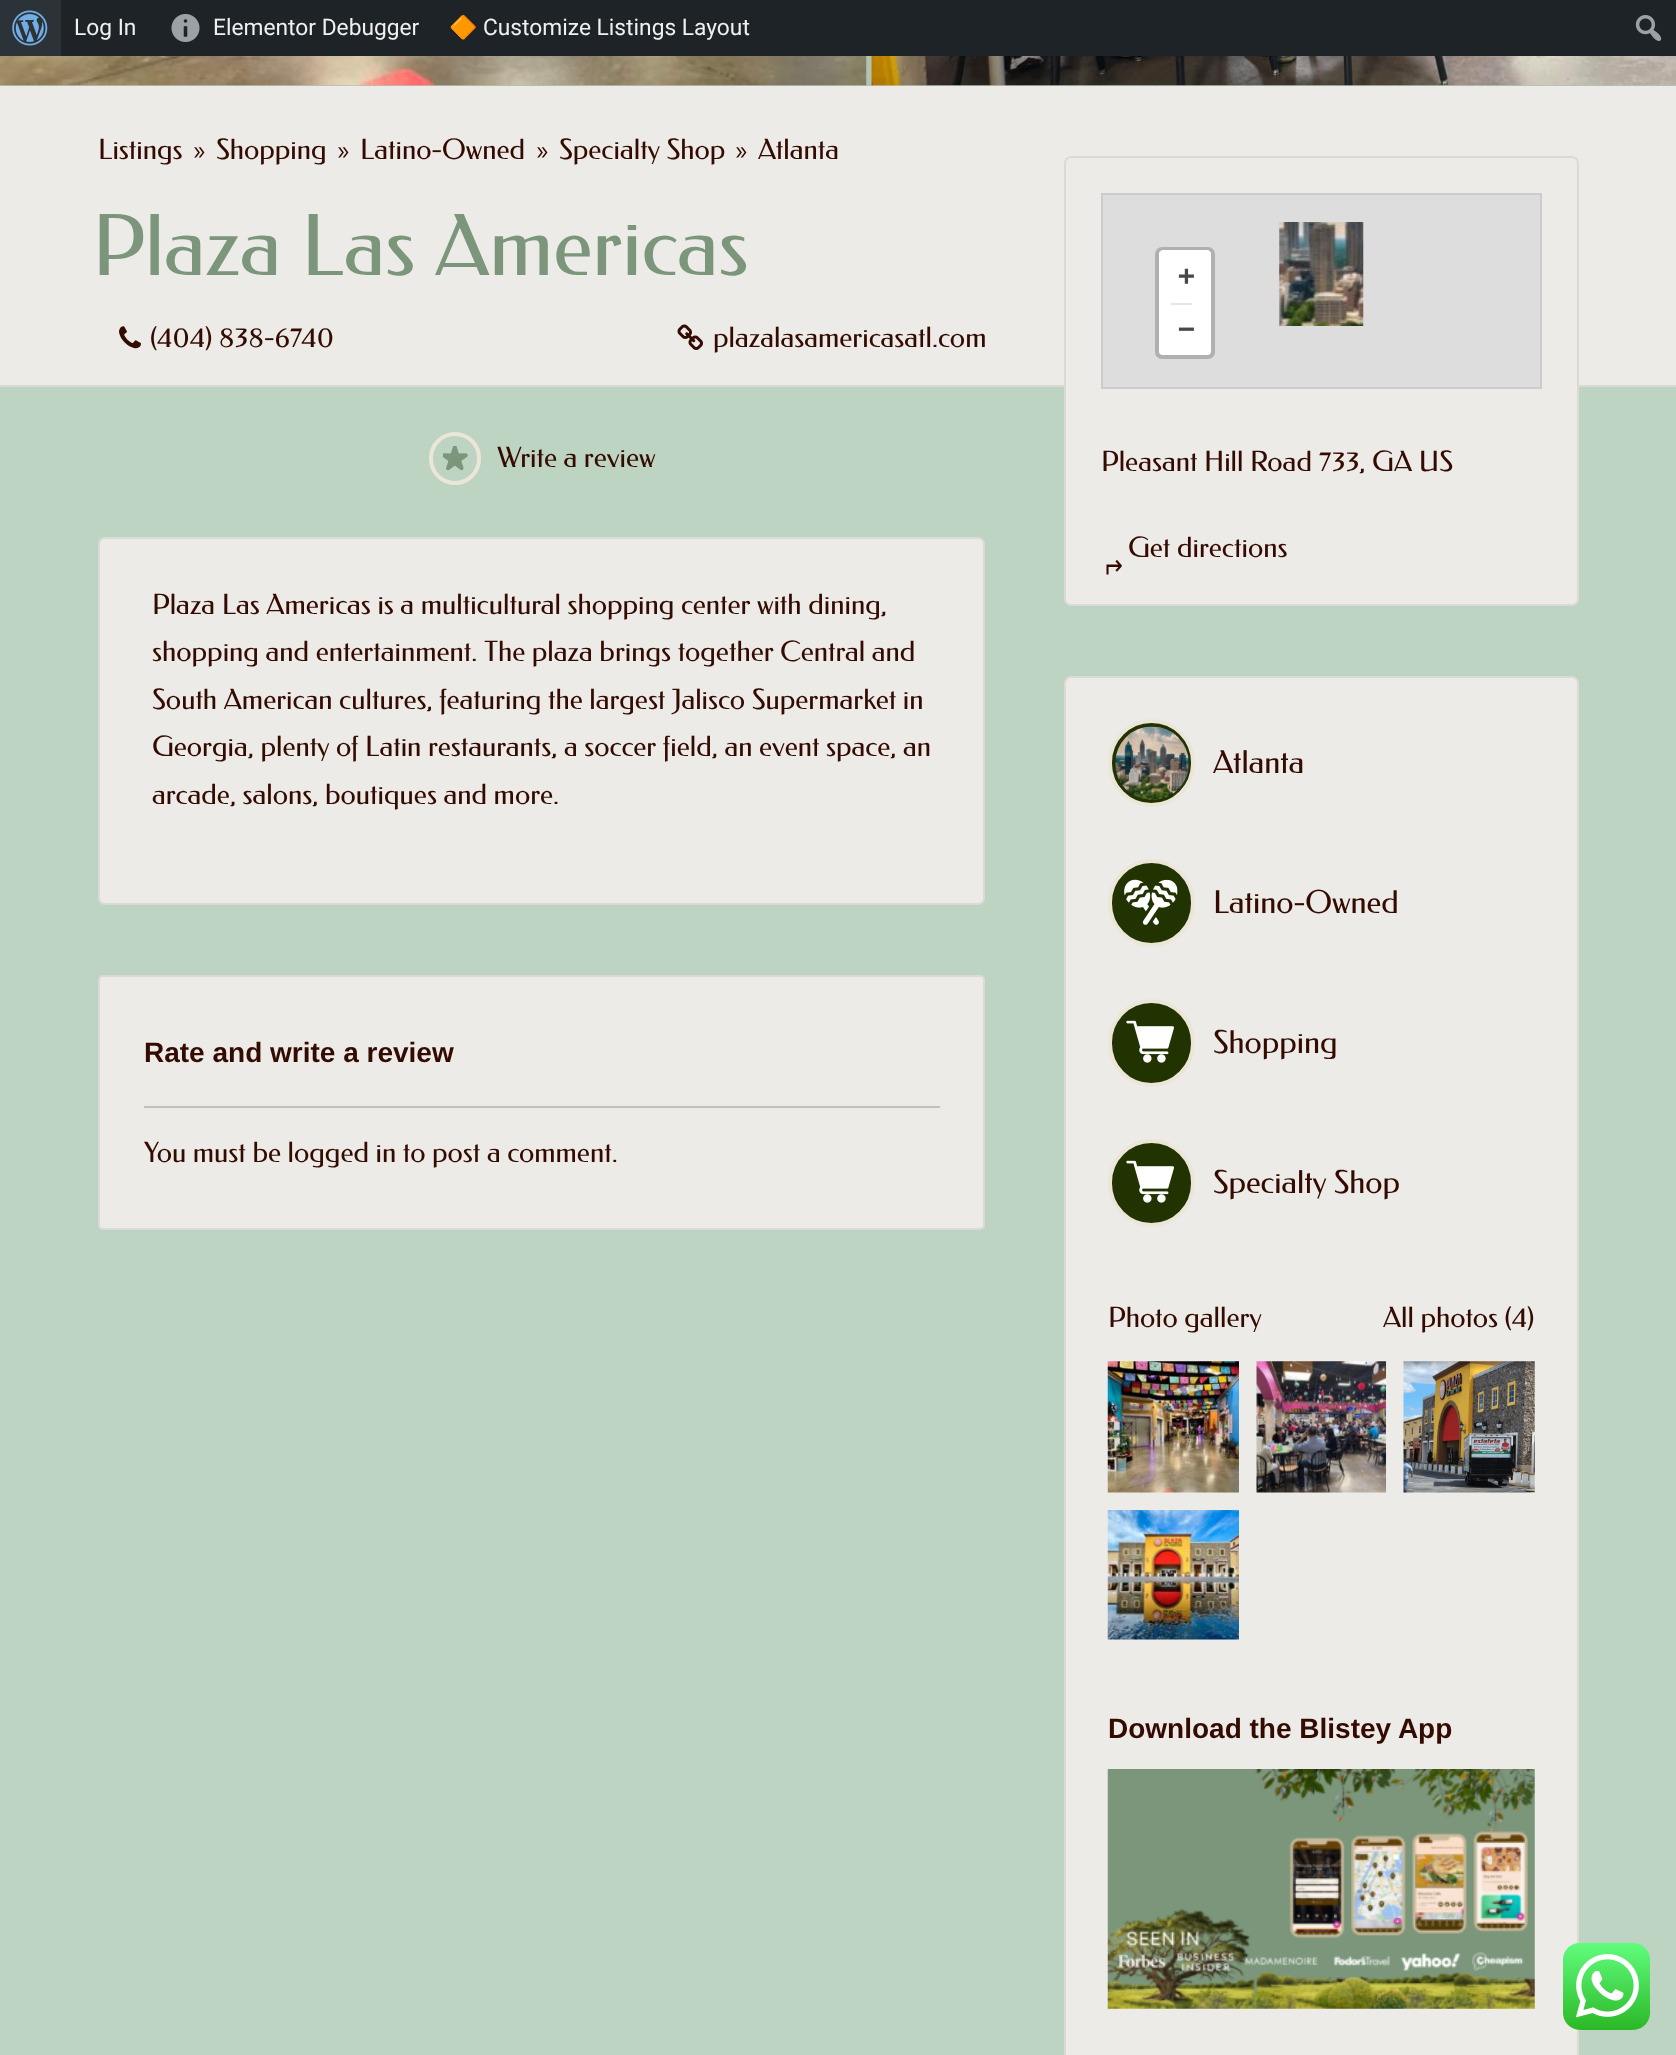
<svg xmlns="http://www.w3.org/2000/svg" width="1676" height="2055">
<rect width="100%" height="100%" fill="#bed4c2"/>
<rect x="61" width="1615" height="56" fill="#1d2327"/>
<rect width="61" height="56" fill="#2c3338"/>
<image x="12" y="10" width="36" height="36" href="media/1.png"/>
<text x="74" y="35" style="font-family:Roboto;font-size:22.75px;fill:#f0f0f1">Log In</text>
<image x="171" y="14" width="29" height="28" href="media/2.png"/>
<text x="213" y="35" style="font-family:Roboto;font-size:22.75px;fill:#f0f0f1">Elementor Debugger</text>
<text x="449" y="35" style="font-family:Noto Color Emoji;font-size:22.75px;fill:#f0f0f1">🔶</text>
<text x="483" y="35" style="font-family:Roboto;font-size:22.75px;fill:#f0f0f1">Customize Listings Layout</text>
<image x="1635" y="15" width="27" height="26" href="media/3.png"/>
<rect y="56" width="1676" height="30" fill="#b0c4b3"/>
<image x="0" y="56" width="867" height="30" href="media/4.png"/>
<image x="871" y="56" width="805" height="30" href="media/5.png"/>
<rect y="86" width="1676" height="299" fill="#edebe8"/>
<rect y="385" width="1676" height="2" fill="#dbd9d7"/>
<text x="98" y="159" style="font-family:Federo;font-size:28px;fill:#340b01">Listings</text>
<text x="193" y="159" style="font-family:Federo;font-size:28px;fill:#340b01">»</text>
<text x="216" y="159" style="font-family:Federo;font-size:28px;fill:#340b01">Shopping</text>
<text x="337" y="159" style="font-family:Federo;font-size:28px;fill:#340b01">»</text>
<text x="360" y="159" style="font-family:Federo;font-size:28px;fill:#340b01">Latino-Owned</text>
<text x="536" y="159" style="font-family:Federo;font-size:28px;fill:#340b01">»</text>
<text x="559" y="159" style="font-family:Federo;font-size:28px;fill:#340b01">Specialty Shop</text>
<text x="735" y="159" style="font-family:Federo;font-size:28px;fill:#340b01">»</text>
<text x="758" y="159" style="font-family:Federo;font-size:28px;fill:#340b01">Atlanta</text>
<text x="92" y="275" style="font-family:Federo;font-size:84px;fill:#7b967a">Plaza Las Americas</text>
<image x="119" y="326" width="22" height="23" href="media/6.png"/>
<text x="150" y="347" style="font-family:Federo;font-size:28px;fill:#340b01">(404) 838-6740</text>
<image x="677" y="324" width="26" height="26" href="media/7.png"/>
<text x="713" y="347" style="font-family:Federo;font-size:28px;fill:#340b01">plazalasamericasatl.com</text>
<rect x="431" y="434" width="48" height="49" rx="24" fill="none" stroke="#ece6d8" stroke-width="4"/>
<image x="443" y="446" width="25" height="25" href="media/8.png"/>
<text x="497" y="467" style="font-family:Federo;font-size:28px;fill:#340b01">Write a review</text>
<rect x="98" y="537" width="887" height="368" rx="7" fill="#edebe8"/>
<rect x="99" y="538" width="885" height="366" rx="6" fill="none" stroke="#00000012" stroke-width="2"/>
<text x="152" y="614" style="font-family:Federo;font-size:28px;fill:#340b01">Plaza Las Americas is a multicultural shopping center with dining,</text>
<text x="152" y="661" style="font-family:Federo;font-size:28px;fill:#340b01">shopping and entertainment. The plaza brings together Central and</text>
<text x="152" y="709" style="font-family:Federo;font-size:28px;fill:#340b01">South American cultures, featuring the largest Jalisco Supermarket in</text>
<text x="152" y="756" style="font-family:Federo;font-size:28px;fill:#340b01">Georgia, plenty of Latin restaurants, a soccer field, an event space, an</text>
<text x="152" y="804" style="font-family:Federo;font-size:28px;fill:#340b01">arcade, salons, boutiques and more.</text>
<rect x="98" y="975" width="887" height="255" rx="5" fill="#edebe8"/>
<rect x="99" y="976" width="885" height="253" rx="4" fill="none" stroke="#00000012" stroke-width="2"/>
<text x="144" y="1062" style="font-family:Liberation Sans;font-size:28px;font-weight:bold;fill:#340b01">Rate and write a review</text>
<rect x="144" y="1106" width="796" height="2" fill="#c8beba"/>
<text x="144" y="1162" style="font-family:Federo;font-size:28px;fill:#340b01">You must be logged in to post a comment.</text>
<rect x="1064" y="156" width="515" height="450" rx="7" fill="#edebe8"/>
<rect x="1065" y="157" width="513" height="448" rx="6" fill="none" stroke="#00000012" stroke-width="2"/>
<rect x="1102" y="194" width="439" height="194" fill="#ddd" stroke="#ccc" stroke-width="2"/>
<rect x="1157" y="249" width="56" height="108" rx="5" fill="none" stroke="#00000033" stroke-width="4"/>
<path d="M1163 250h44c2 0 4 2 4 4v49h-52v-49c0-2 2-4 4-4z" fill="#fff"/>
<text x="1178" y="285" style="font-family:DejaVu Sans Mono;font-size:28px;font-weight:bold;fill:#484848">+</text>
<path d="M1159 303h52v48c0 2-2 4-4 4h-44c-2 0-4-2-4-4z" fill="#fff"/>
<rect x="1171" y="303" width="21" height="2" fill="#e6e6e6"/>
<text x="1178" y="338" style="font-family:DejaVu Sans Mono;font-size:28px;font-weight:bold;fill:#484848">−</text>
<image x="1279" y="222" width="85" height="104" href="media/9.png"/>
<text x="1101" y="471" style="font-family:Federo;font-size:28px;fill:#340b01">Pleasant Hill Road 733, GA US</text>
<text x="1128" y="557" style="font-family:Federo;font-size:28px;fill:#340b01">Get directions</text>
<text x="1123" y="557" transform="rotate(180 1123 557)" style="font-family:DejaVu Sans;font-size:28px;fill:#340b01">↵</text>
<rect x="1064" y="676" width="515" height="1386" rx="7" fill="#edebe8"/>
<rect x="1065" y="677" width="513" height="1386" rx="6" fill="none" stroke="#00000012" stroke-width="2"/>
<rect x="1110" y="721" width="83" height="84" rx="41.5" fill="#223302" stroke="#ece6d8" stroke-width="4"/>
<image x="1115" y="726" width="74" height="74" href="media/10.png"/>
<text x="1213" y="773" style="font-family:Federo;font-size:31.5px;fill:#340b01">Atlanta</text>
<rect x="1110" y="861" width="83" height="84" rx="41.5" fill="#223302" stroke="#ece6d8" stroke-width="4"/>
<image x="1124" y="879" width="54" height="46" href="media/11.png"/>
<text x="1213" y="913" style="font-family:Federo;font-size:31.5px;fill:#340b01">Latino-Owned</text>
<rect x="1110" y="1001" width="83" height="84" rx="41.5" fill="#223302" stroke="#ece6d8" stroke-width="4"/>
<image x="1126" y="1020" width="48" height="43" href="media/12.png"/>
<text x="1213" y="1053" style="font-family:Federo;font-size:31.5px;fill:#340b01">Shopping</text>
<rect x="1110" y="1141" width="83" height="84" rx="41.5" fill="#223302" stroke="#ece6d8" stroke-width="4"/>
<image x="1126" y="1160" width="48" height="43" href="media/12.png"/>
<text x="1213" y="1193" style="font-family:Federo;font-size:31.5px;fill:#340b01">Specialty Shop</text>
<text x="1108" y="1327" style="font-family:Federo;font-size:28px;fill:#340b01">Photo gallery</text>
<text x="1383" y="1327" style="font-family:Federo;font-size:28px;fill:#340b01">All photos (4)</text>
<image x="1107" y="1361" width="132" height="132" href="media/13.png"/>
<image x="1256" y="1361" width="131" height="132" href="media/14.png"/>
<image x="1403" y="1361" width="132" height="132" href="media/15.png"/>
<image x="1107" y="1510" width="132" height="130" href="media/16.png"/>
<text x="1108" y="1738" style="font-family:Liberation Sans;font-size:28px;font-weight:bold;fill:#340b01">Download the Blistey App</text>
<image x="1107" y="1769" width="428" height="240" href="media/17.png"/>
<image x="1563" y="1943" width="87" height="87" href="media/18.png"/>
</svg>
